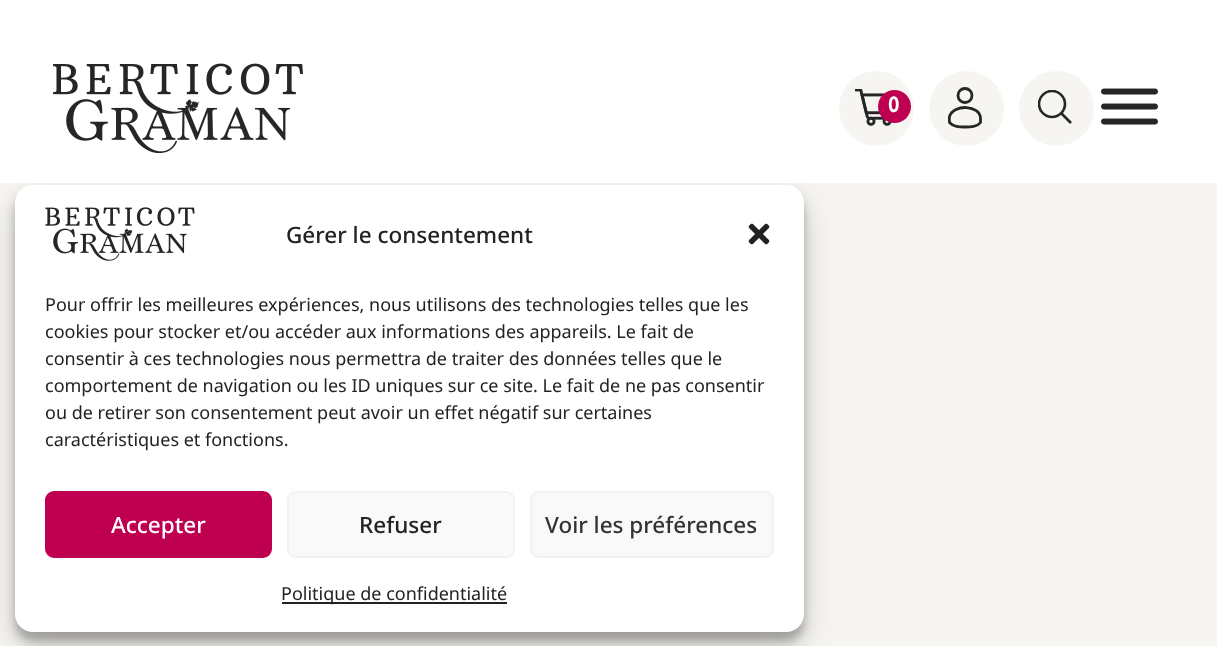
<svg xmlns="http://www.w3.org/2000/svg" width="1217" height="646">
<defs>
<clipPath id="clip1"><rect x="948" y="87" width="35" height="42"/></clipPath>
<clipPath id="clip2"><rect x="1038" y="90" width="35" height="35"/></clipPath>
</defs>
<rect width="100%" height="100%" fill="#f7f5f2"/>
<rect x="15" y="194" width="789" height="447" rx="18" fill="#0000003b" filter="blur(4.5px)"/>
<rect x="15" y="200" width="789" height="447" rx="18" fill="#00000030" filter="blur(15px)"/>
<rect width="1217" height="183" fill="#fff"/>
<image x="53" y="63" width="250" height="90" href="media/1.png"/>
<circle cx="876.5" cy="108.5" r="37.5" fill="#f7f5f2"/>
<image x="855" y="89" width="37" height="37" href="media/2.png"/>
<circle cx="894.5" cy="106.5" r="16.5" fill="#bf0050"/>
<text x="888" y="112" style="font-family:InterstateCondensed;font-size:22px;font-weight:bold;letter-spacing:-1px;fill:#fff">0</text>
<circle cx="966.5" cy="108.5" r="37.5" fill="#f7f5f2"/>
<g clip-path="url(#clip1)">
<path d="M980.5 118.5v4c-3.5 4.5-9.5 4.5-15.5 4.5c-6 0-11.5 0-15.5-4.5c0-2-.5-4.5 0-6c4-13 31-11.5 31 2z" fill="none" stroke="#262626" stroke-width="2.8"/>
</g>
<circle cx="965" cy="95.5" r="7" fill="none" stroke="#262626" stroke-width="2.8"/>
<circle cx="1056.5" cy="108.5" r="37.5" fill="#f7f5f2"/>
<g clip-path="url(#clip2)">
<circle cx="1052" cy="104" r="13" fill="none" stroke="#262626" stroke-width="2.6"/>
</g>
<path d="M1061 113l10 10" fill="none" stroke="#262626" stroke-width="2.6"/>
<image x="1101" y="88" width="57" height="37" href="media/3.png"/>
<rect x="15" y="185" width="789" height="447" rx="18" fill="#fff"/>
<image x="45" y="207" width="150" height="54" href="media/4.png"/>
<text x="286" y="243" style="font-family:Noto Sans;font-size:22.5px;font-weight:500;fill:#222">Gérer le consentement</text>
<image x="748" y="223" width="22" height="22" href="media/5.png"/>
<text x="45" y="311" style="font-family:Noto Sans;font-size:18px;fill:#222">Pour offrir les meilleures expériences, nous utilisons des technologies telles que les</text>
<text x="45" y="338" style="font-family:Noto Sans;font-size:18px;fill:#222">cookies pour stocker et/ou accéder aux informations des appareils. Le fait de</text>
<text x="45" y="365" style="font-family:Noto Sans;font-size:18px;fill:#222">consentir à ces technologies nous permettra de traiter des données telles que le</text>
<text x="45" y="392" style="font-family:Noto Sans;font-size:18px;fill:#222">comportement de navigation ou les ID uniques sur ce site. Le fait de ne pas consentir</text>
<text x="45" y="419" style="font-family:Noto Sans;font-size:18px;fill:#222">ou de retirer son consentement peut avoir un effet négatif sur certaines</text>
<text x="45" y="446" style="font-family:Noto Sans;font-size:18px;fill:#222">caractéristiques et fonctions.</text>
<rect x="46" y="492" width="225" height="65" rx="8" fill="#bf0050" stroke="#bf0050" stroke-width="2"/>
<text x="111" y="533" style="font-family:Noto Sans;font-size:22.5px;font-weight:500;fill:#fff">Accepter</text>
<rect x="288" y="492" width="226" height="65" rx="8" fill="#f9f9f9" stroke="#f2f2f2" stroke-width="2"/>
<text x="359" y="533" style="font-family:Noto Sans;font-size:22.5px;font-weight:500;fill:#222">Refuser</text>
<rect x="531" y="492" width="242" height="65" rx="8" fill="#f9f9f9" stroke="#f2f2f2" stroke-width="2"/>
<text x="545" y="533" style="font-family:Noto Sans;font-size:22.5px;font-weight:500;fill:#333">Voir les préférences</text>
<rect x="282" y="602" width="225" height="2" fill="#222"/>
<text x="281" y="600" style="font-family:Noto Sans;font-size:18px;fill:#222">Politique de confidentialité</text>
</svg>
